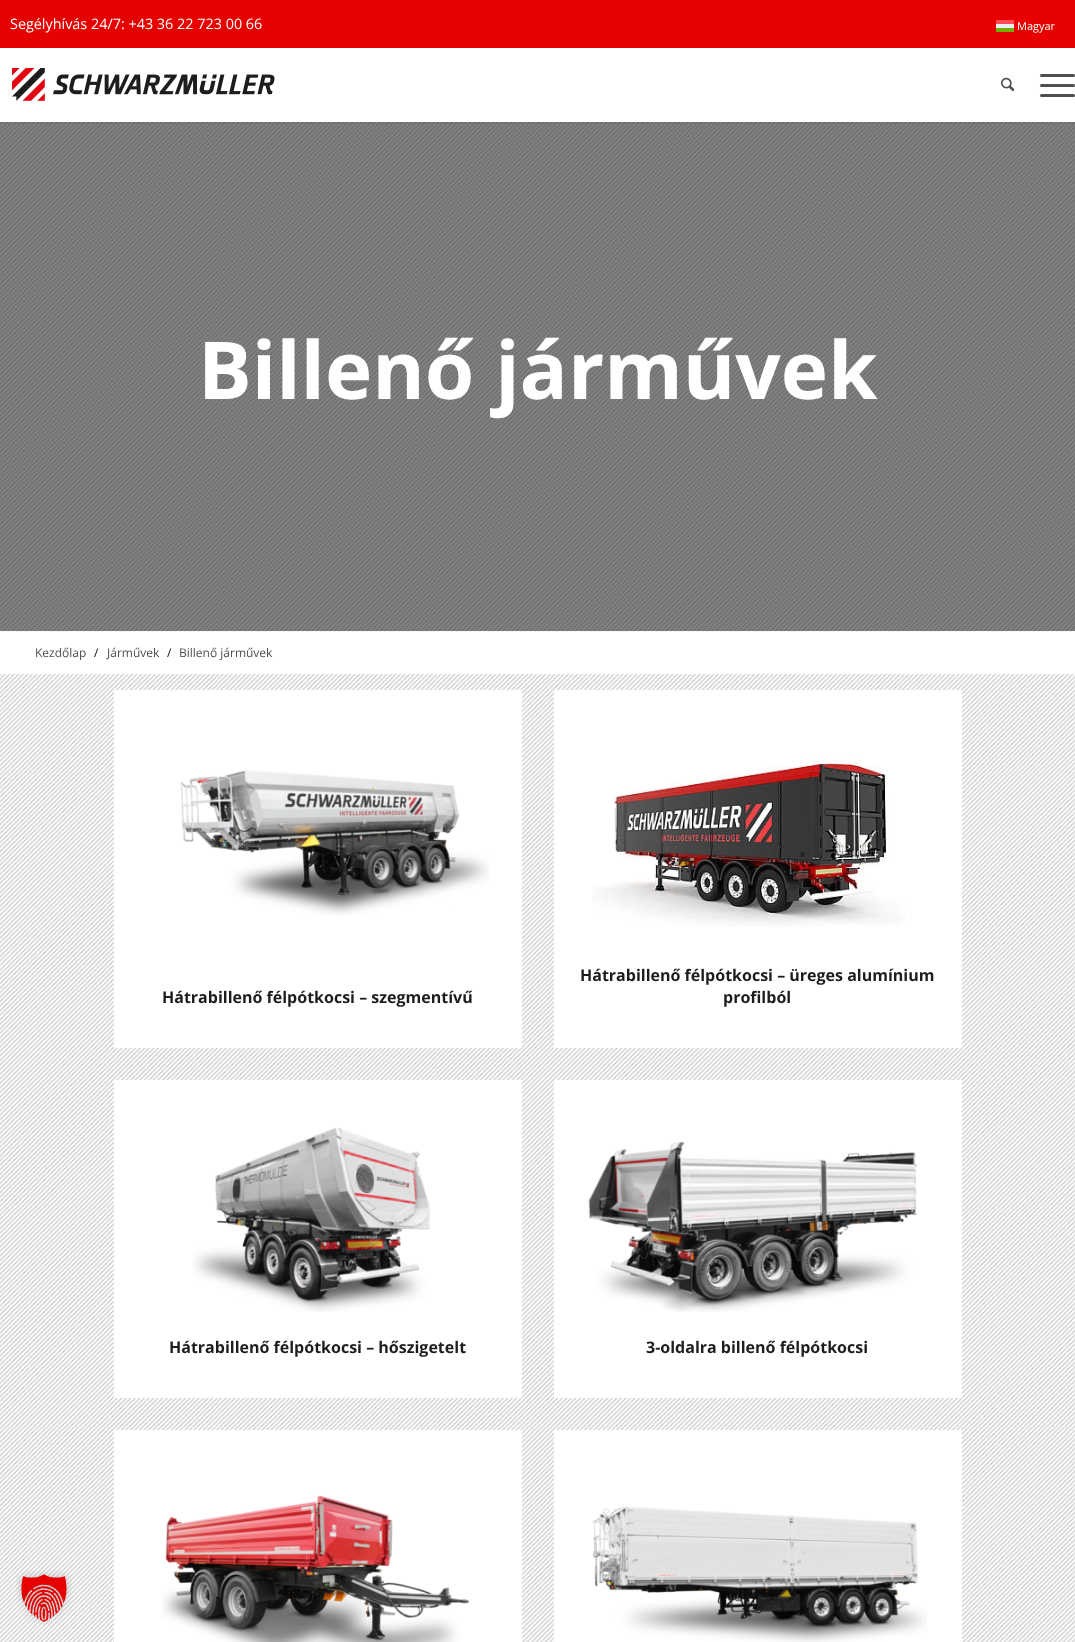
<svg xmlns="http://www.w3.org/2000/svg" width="1075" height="1642">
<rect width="100%" height="100%" fill="#fff"/>
<image x="0" y="122" width="1075" height="1520" href="media/3.png"/>
<rect y="122" width="1075" height="509" fill="#0a0a0a80"/>
<rect x="-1" y="-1" width="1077" height="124" fill="#0000001a" filter="blur(1px)"/>
<rect width="1075" height="48" fill="#e60000"/>
<text x="10" y="29" style="font-family:Open Sans;font-size:14.4px;fill:#fff">Segélyhívás 24/7: +43 36 22 723 00 66</text>
<rect x="996" y="24" width="18" height="4" fill="#f0f0f0"/>
<rect x="996" y="28" width="18" height="4" fill="#73af00"/>
<rect x="996" y="20" width="18" height="4" fill="#ff4b55"/>
<text x="1017" y="30" style="font-family:Open Sans;font-size:11px;fill:#fff">Magyar</text>
<rect y="48" width="1075" height="74" fill="#fff"/>
<image x="12" y="68" width="263" height="33" href="media/1.png"/>
<image x="1001" y="77" width="13" height="15" href="media/2.png"/>
<rect x="1040" y="84" width="35" height="3" rx="1.5" fill="#4f4f4f"/>
<rect x="1040" y="74" width="35" height="3" rx="1.5" fill="#4f4f4f"/>
<rect x="1040" y="94" width="35" height="3" rx="1.5" fill="#4f4f4f"/>
<text x="198" y="399" style="font-family:Open Sans;font-size:80px;font-weight:bold;fill:#fff">Billenő járművek</text>
<rect y="632" width="1075" height="42" fill="#fff"/>
<rect y="631" width="1075" height="1" fill="#f7f7f7"/>
<text x="35" y="657" style="font-family:Open Sans;font-size:12px;fill:#4f4f4f">Kezdőlap</text>
<text x="94" y="657" style="font-family:Open Sans;font-size:12px;fill:#000">/</text>
<text x="107" y="657" style="font-family:Open Sans;font-size:12px;fill:#4f4f4f">Járművek</text>
<text x="167" y="657" style="font-family:Open Sans;font-size:12px;fill:#000">/</text>
<text x="179" y="657" style="font-family:Open Sans;font-size:12px;fill:#4f4f4f">Billenő járművek</text>
<rect x="114" y="690" width="408" height="358" fill="#fff"/>
<image x="180" y="770" width="309" height="146" href="media/4.png"/>
<text x="162" y="1003" style="font-family:Open Sans;font-size:16px;font-weight:bold;fill:#1d1d1d">Hátrabillenő félpótkocsi – szegmentívű</text>
<rect x="554" y="690" width="408" height="358" fill="#fff"/>
<image x="592" y="758" width="313" height="169" href="media/5.png"/>
<text x="580" y="981" style="font-family:Open Sans;font-size:16px;font-weight:bold;fill:#1d1d1d">Hátrabillenő félpótkocsi – üreges alumínium</text>
<text x="723" y="1003" style="font-family:Open Sans;font-size:16px;font-weight:bold;fill:#1d1d1d">profilból</text>
<rect x="114" y="1080" width="408" height="318" fill="#fff"/>
<image x="192" y="1127" width="238" height="185" href="media/6.png"/>
<text x="169" y="1353" style="font-family:Open Sans;font-size:16px;font-weight:bold;fill:#1d1d1d">Hátrabillenő félpótkocsi – hőszigetelt</text>
<rect x="554" y="1080" width="408" height="318" fill="#fff"/>
<image x="588" y="1141" width="330" height="171" href="media/7.png"/>
<text x="646" y="1353" style="font-family:Open Sans;font-size:16px;font-weight:bold;fill:#1d1d1d">3-oldalra billenő félpótkocsi</text>
<rect x="114" y="1430" width="408" height="212" fill="#fff"/>
<image x="161" y="1495" width="309" height="147" href="media/8.png"/>
<rect x="554" y="1430" width="408" height="212" fill="#fff"/>
<image x="592" y="1506" width="335" height="136" href="media/9.png"/>
<image x="16" y="1570" width="56" height="54" href="media/10.png"/>
</svg>
